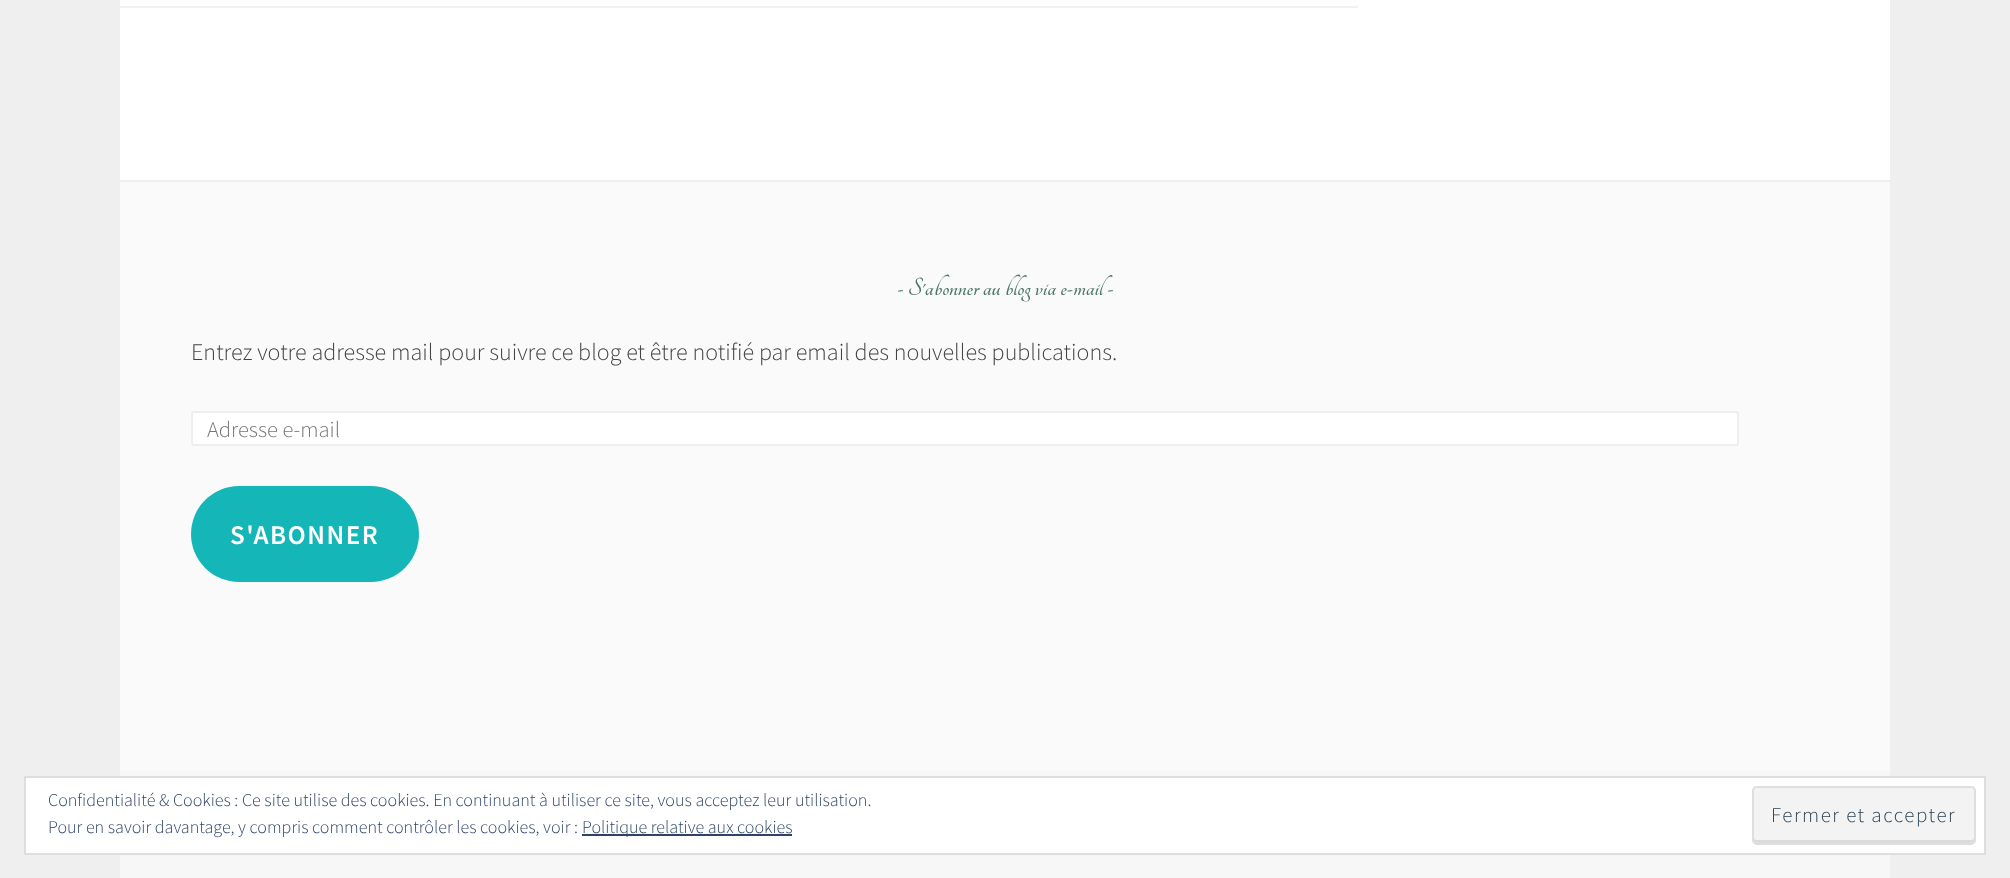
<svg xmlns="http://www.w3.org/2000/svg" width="2010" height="878">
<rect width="100%" height="100%" fill="#efefef"/>
<rect x="120" width="1770" height="180" fill="#fff"/>
<rect x="120" y="6" width="1238" height="2" fill="#f2f2f2"/>
<rect x="120" y="182" width="1770" height="589" fill="#fafafa"/>
<text x="897" y="295" style="font-family:Tangerine;font-size:27px;font-weight:bold;fill:#4b766b">- S'abonner au blog via e-mail -</text>
<text x="191" y="360" style="font-family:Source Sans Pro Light;font-size:24px;font-weight:300;fill:#444340">Entrez votre adresse mail pour suivre ce blog et être notifié par email des nouvelles publications.</text>
<rect x="192" y="412" width="1546" height="33" rx="2" fill="#fff" stroke="#eee" stroke-width="2"/>
<text x="207" y="437" style="font-family:Source Sans Pro Light;font-size:22.5px;font-weight:300;fill:#757575">Adresse e-mail</text>
<rect x="191" y="486" width="228" height="96" rx="48" fill="#15b6b8"/>
<text x="230" y="544" style="font-family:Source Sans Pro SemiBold;font-size:27px;font-weight:600;letter-spacing:1.5px;fill:#fff">S'ABONNER</text>
<rect x="120" y="771" width="1770" height="107" fill="#f7f7f7"/>
<rect x="25" y="777" width="1960" height="77" fill="#fff" stroke="#dedede" stroke-width="2"/>
<text x="48" y="806" style="font-family:Source Sans Pro Light;font-size:18px;font-weight:300;fill:#2e4467">Confidentialité &amp; Cookies : Ce site utilise des cookies. En continuant à utiliser ce site, vous acceptez leur utilisation.</text>
<text x="48" y="833" style="font-family:Source Sans Pro Light;font-size:18px;font-weight:300;fill:#2e4467">Pour en savoir davantage, y compris comment contrôler les cookies, voir :</text>
<rect x="582" y="834" width="210" height="2" fill="#2e4467"/>
<text x="582" y="833" style="font-family:Source Sans Pro Light;font-size:18px;font-weight:300;fill:#2e4467">Politique relative aux cookies</text>
<rect x="1752" y="786" width="224" height="59" rx="5" fill="#f3f3f3"/>
<path d="M1754 837v3c0 2 1 3 3 3h214c2 0 3-1 3-3v-3c0 2-1 3-3 3h-215c-1 0-2-1-2-3z" fill="#dbdbdb"/>
<rect x="1753" y="787" width="222" height="57" rx="4" fill="none" stroke="#dedede" stroke-width="2"/>
<text x="1771" y="822" style="font-family:Source Sans Pro Light;font-size:21px;font-weight:300;letter-spacing:1.5px;fill:#2e4453">Fermer et accepter</text>
</svg>
